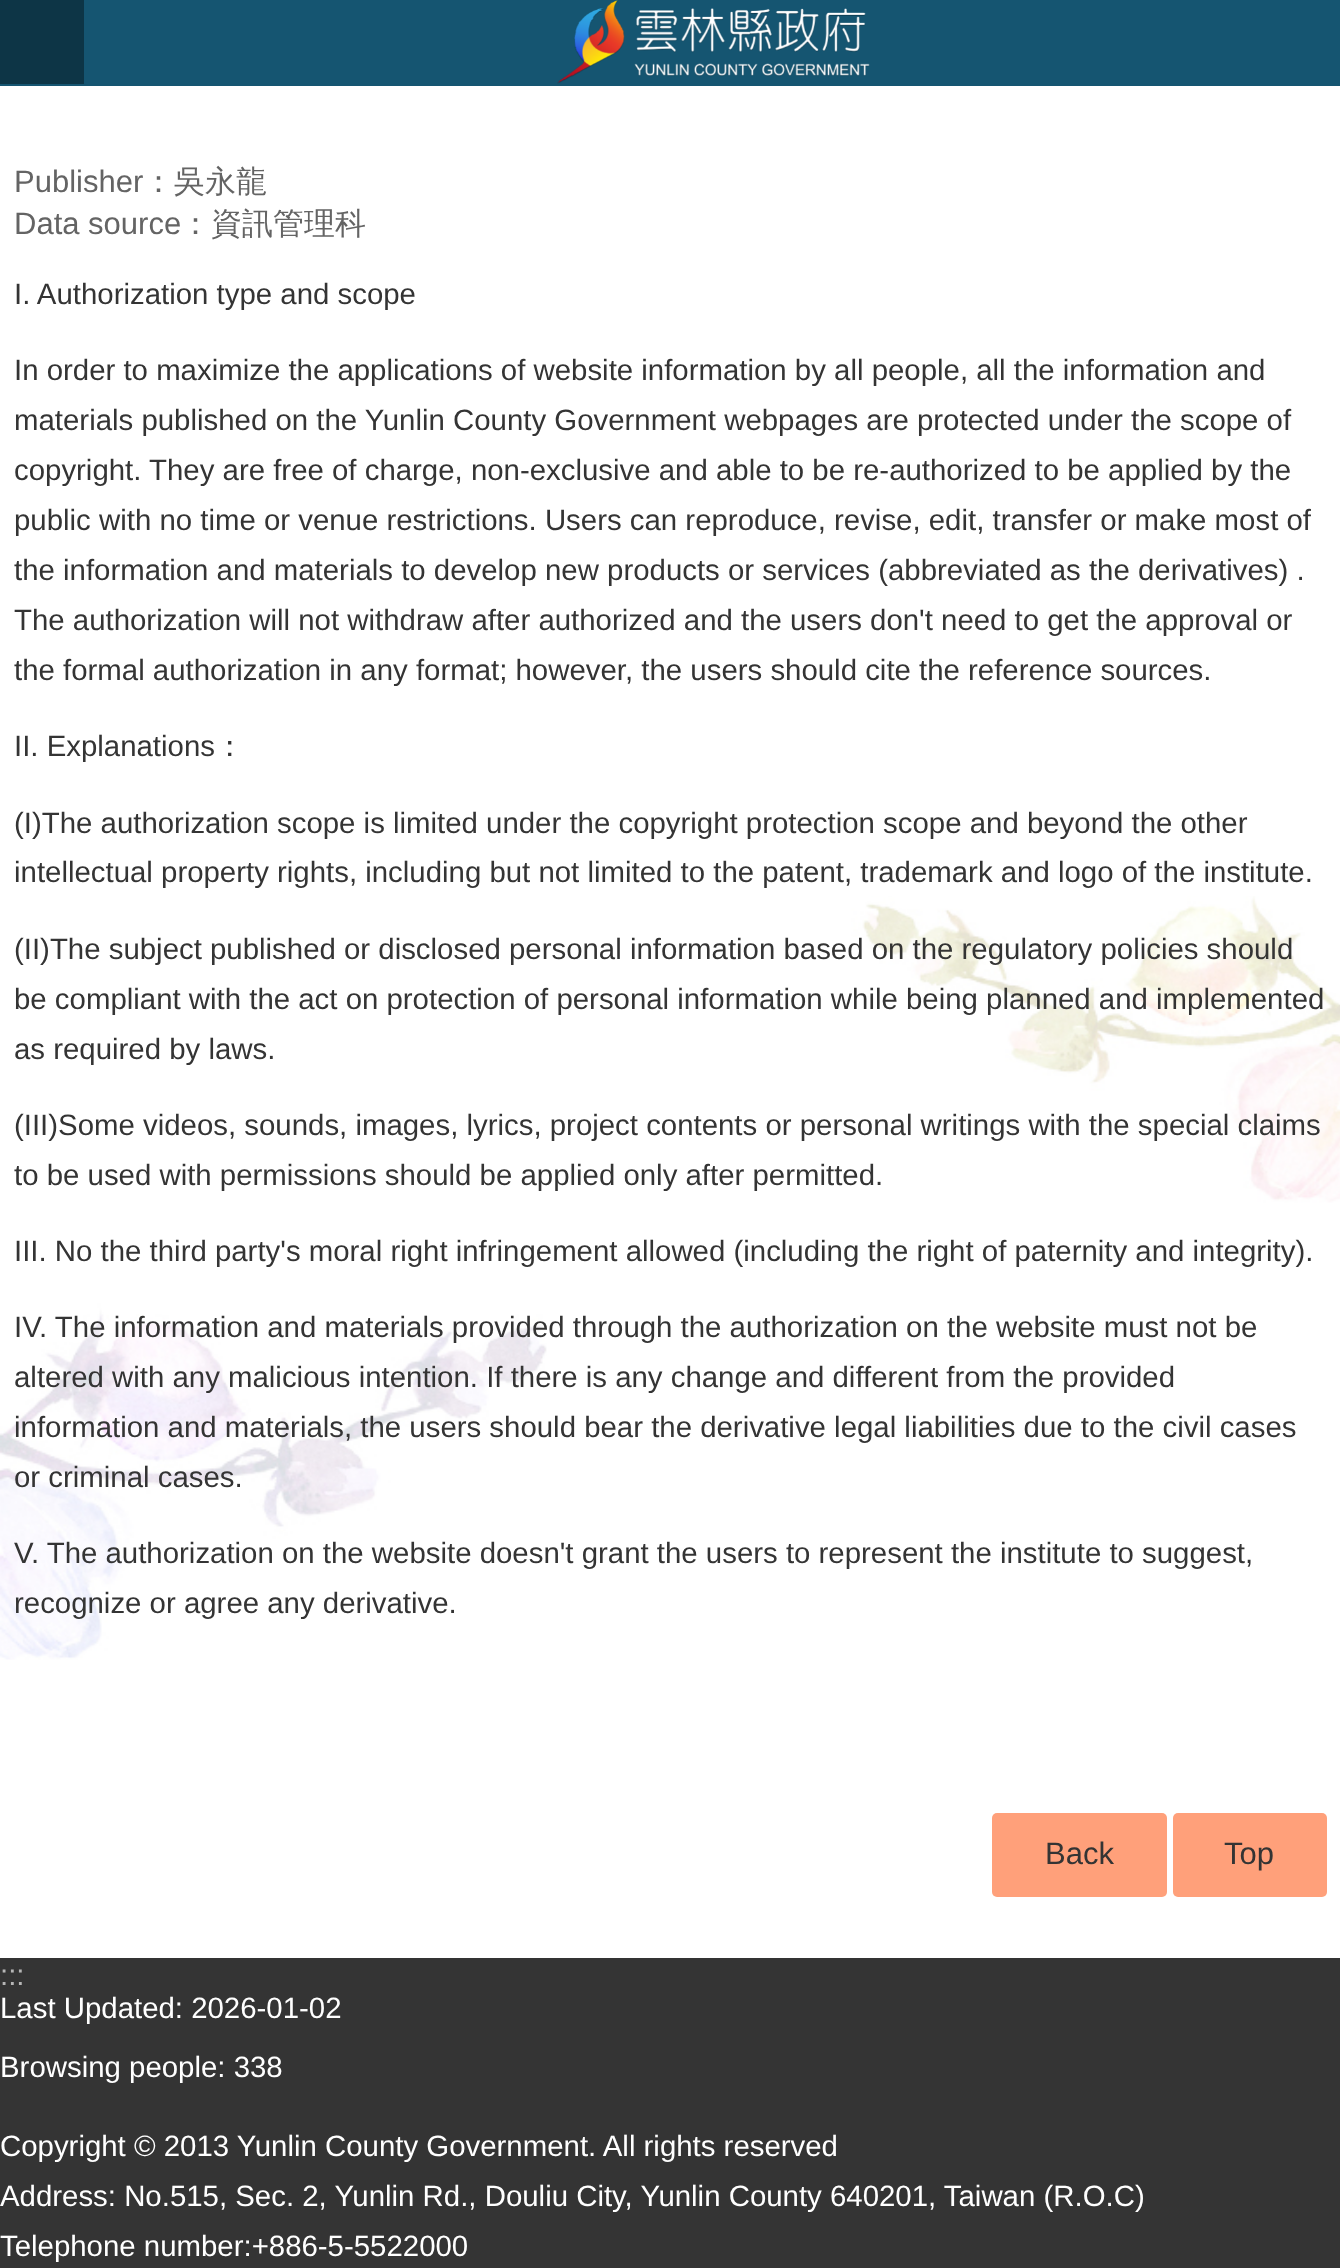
<svg xmlns="http://www.w3.org/2000/svg" width="1340" height="2268">
<rect width="100%" height="100%" fill="#fff"/>
<rect width="84" height="84" fill="#0d3546"/>
<rect y="84" width="1340" height="2" fill="#155571"/>
<rect x="84" width="1256" height="84" fill="#155571"/>
<image x="557" y="0" width="313" height="84" href="media/1.png"/>
<image x="0" y="896" width="1340" height="764" href="media/2.png"/>
<text x="14" y="192" style="font-family:Liberation Sans;font-size:31px;fill:#646464">Publisher</text>
<text x="143" y="192" style="font-family:WenQuanYi Zen Hei;font-size:31px;font-weight:500;fill:#646464">：吳永龍</text>
<text x="14" y="234" style="font-family:Liberation Sans;font-size:31px;fill:#646464">Data source</text>
<text x="180" y="234" style="font-family:WenQuanYi Zen Hei;font-size:31px;font-weight:500;fill:#646464">：資訊管理科</text>
<text x="14" y="304" style="font-family:Liberation Sans;font-size:29.4px;fill:#343434">I. Authorization type and scope</text>
<text x="14" y="380" style="font-family:Liberation Sans;font-size:29.4px;fill:#343434">In order to maximize the applications of website information by all people, all the information and</text>
<text x="14" y="430" style="font-family:Liberation Sans;font-size:29.4px;fill:#343434">materials published on the Yunlin County Government webpages are protected under the scope of</text>
<text x="14" y="480" style="font-family:Liberation Sans;font-size:29.4px;fill:#343434">copyright. They are free of charge, non-exclusive and able to be re-authorized to be applied by the</text>
<text x="14" y="530" style="font-family:Liberation Sans;font-size:29.4px;fill:#343434">public with no time or venue restrictions. Users can reproduce, revise, edit, transfer or make most of</text>
<text x="14" y="580" style="font-family:Liberation Sans;font-size:29.4px;fill:#343434">the information and materials to develop new products or services (abbreviated as the derivatives) .</text>
<text x="14" y="630" style="font-family:Liberation Sans;font-size:29.4px;fill:#343434">The authorization will not withdraw after authorized and the users don't need to get the approval or</text>
<text x="14" y="680" style="font-family:Liberation Sans;font-size:29.4px;fill:#343434">the formal authorization in any format; however, the users should cite the reference sources.</text>
<text x="14" y="756" style="font-family:Liberation Sans;font-size:29.4px;fill:#343434">II. Explanations</text>
<text x="215" y="756" style="font-family:WenQuanYi Zen Hei;font-size:29.4px;font-weight:500;fill:#343434">：</text>
<text x="14" y="833" style="font-family:Liberation Sans;font-size:29.4px;fill:#343434">(I)The authorization scope is limited under the copyright protection scope and beyond the other</text>
<text x="14" y="882" style="font-family:Liberation Sans;font-size:29.4px;fill:#343434">intellectual property rights, including but not limited to the patent, trademark and logo of the institute.</text>
<text x="14" y="959" style="font-family:Liberation Sans;font-size:29.4px;fill:#343434">(II)The subject published or disclosed personal information based on the regulatory policies should</text>
<text x="14" y="1009" style="font-family:Liberation Sans;font-size:29.4px;fill:#343434">be compliant with the act on protection of personal information while being planned and implemented</text>
<text x="14" y="1059" style="font-family:Liberation Sans;font-size:29.4px;fill:#343434">as required by laws.</text>
<text x="14" y="1135" style="font-family:Liberation Sans;font-size:29.4px;fill:#343434">(III)Some videos, sounds, images, lyrics, project contents or personal writings with the special claims</text>
<text x="14" y="1185" style="font-family:Liberation Sans;font-size:29.4px;fill:#343434">to be used with permissions should be applied only after permitted.</text>
<text x="14" y="1261" style="font-family:Liberation Sans;font-size:29.4px;fill:#343434">III. No the third party's moral right infringement allowed (including the right of paternity and integrity).</text>
<text x="14" y="1337" style="font-family:Liberation Sans;font-size:29.4px;fill:#343434">IV. The information and materials provided through the authorization on the website must not be</text>
<text x="14" y="1387" style="font-family:Liberation Sans;font-size:29.4px;fill:#343434">altered with any malicious intention. If there is any change and different from the provided</text>
<text x="14" y="1437" style="font-family:Liberation Sans;font-size:29.4px;fill:#343434">information and materials, the users should bear the derivative legal liabilities due to the civil cases</text>
<text x="14" y="1487" style="font-family:Liberation Sans;font-size:29.4px;fill:#343434">or criminal cases.</text>
<text x="14" y="1563" style="font-family:Liberation Sans;font-size:29.4px;fill:#343434">V. The authorization on the website doesn't grant the users to represent the institute to suggest,</text>
<text x="14" y="1613" style="font-family:Liberation Sans;font-size:29.4px;fill:#343434">recognize or agree any derivative.</text>
<rect x="992" y="1813" width="175" height="84" rx="5" fill="#ffa07a"/>
<text x="1045" y="1864" style="font-family:Liberation Sans;font-size:31px;fill:#343434">Back</text>
<rect x="1173" y="1813" width="154" height="84" rx="5" fill="#ffa07a"/>
<text x="1224" y="1864" style="font-family:Liberation Sans;font-size:31px;fill:#343434">Top</text>
<rect y="1958" width="1340" height="310" fill="#343434"/>
<text x="0" y="1985" style="font-family:Liberation Sans;font-size:29.4px;fill:#b6b6b6">:::</text>
<text x="0" y="2018" style="font-family:Liberation Sans;font-size:29.4px;fill:#fff">Last Updated: 2026-01-02</text>
<text x="0" y="2077" style="font-family:Liberation Sans;font-size:29.4px;fill:#fff">Browsing people: 338</text>
<text x="0" y="2156" style="font-family:Liberation Sans;font-size:29.4px;fill:#fff">Copyright © 2013 Yunlin County Government. All rights reserved</text>
<text x="0" y="2206" style="font-family:Liberation Sans;font-size:29.4px;fill:#fff">Address: No.515, Sec. 2, Yunlin Rd., Douliu City, Yunlin County 640201, Taiwan (R.O.C)</text>
<text x="0" y="2256" style="font-family:Liberation Sans;font-size:29.4px;fill:#fff">Telephone number:+886-5-5522000</text>
</svg>
